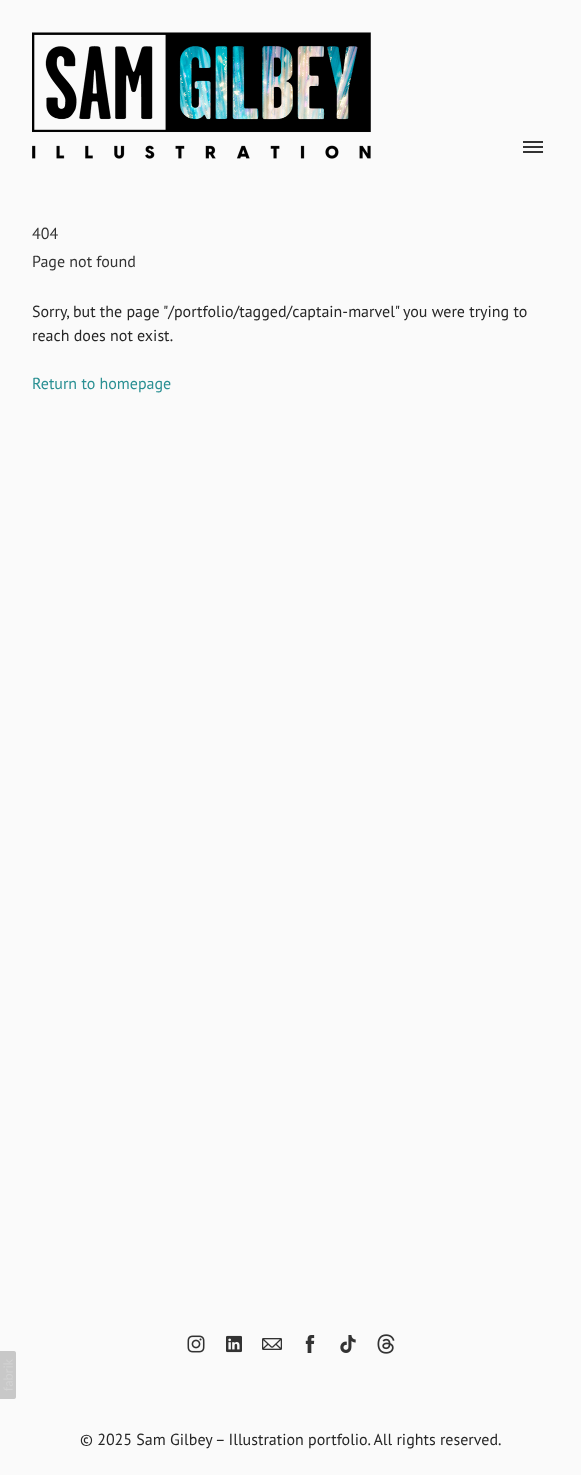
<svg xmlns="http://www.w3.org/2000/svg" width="581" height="1475">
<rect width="100%" height="100%" fill="#fafafa"/>
<image x="0" y="1351" width="16" height="48" href="media/1.png"/>
<image x="32" y="32" width="339" height="127" href="media/2.png"/>
<image x="523" y="141" width="21" height="12" href="media/3.png"/>
<text x="32" y="239" style="font-family:PT Sans;font-size:16px;fill:#333">404</text>
<text x="32" y="267" style="font-family:PT Sans;font-size:16px;fill:#333">Page not found</text>
<text x="32" y="317" style="font-family:PT Sans;font-size:16px;fill:#262626">Sorry, but the page "/portfolio/tagged/captain-marvel" you were trying to</text>
<text x="32" y="341" style="font-family:PT Sans;font-size:16px;fill:#262626">reach does not exist.</text>
<text x="32" y="389" style="font-family:PT Sans;font-size:16px;fill:#2b9093">Return to homepage</text>
<image x="187" y="1335" width="18" height="18" href="media/4.png"/>
<image x="226" y="1335" width="16" height="18" href="media/5.png"/>
<image x="262" y="1338" width="20" height="12" href="media/6.png"/>
<image x="305" y="1335" width="10" height="18" href="media/7.png"/>
<image x="340" y="1335" width="16" height="18" href="media/8.png"/>
<image x="377" y="1334" width="18" height="20" href="media/9.png"/>
<text x="80" y="1445" style="font-family:PT Sans;font-size:16px;fill:#262626">© 2025 Sam Gilbey – Illustration portfolio. All rights reserved.</text>
</svg>
